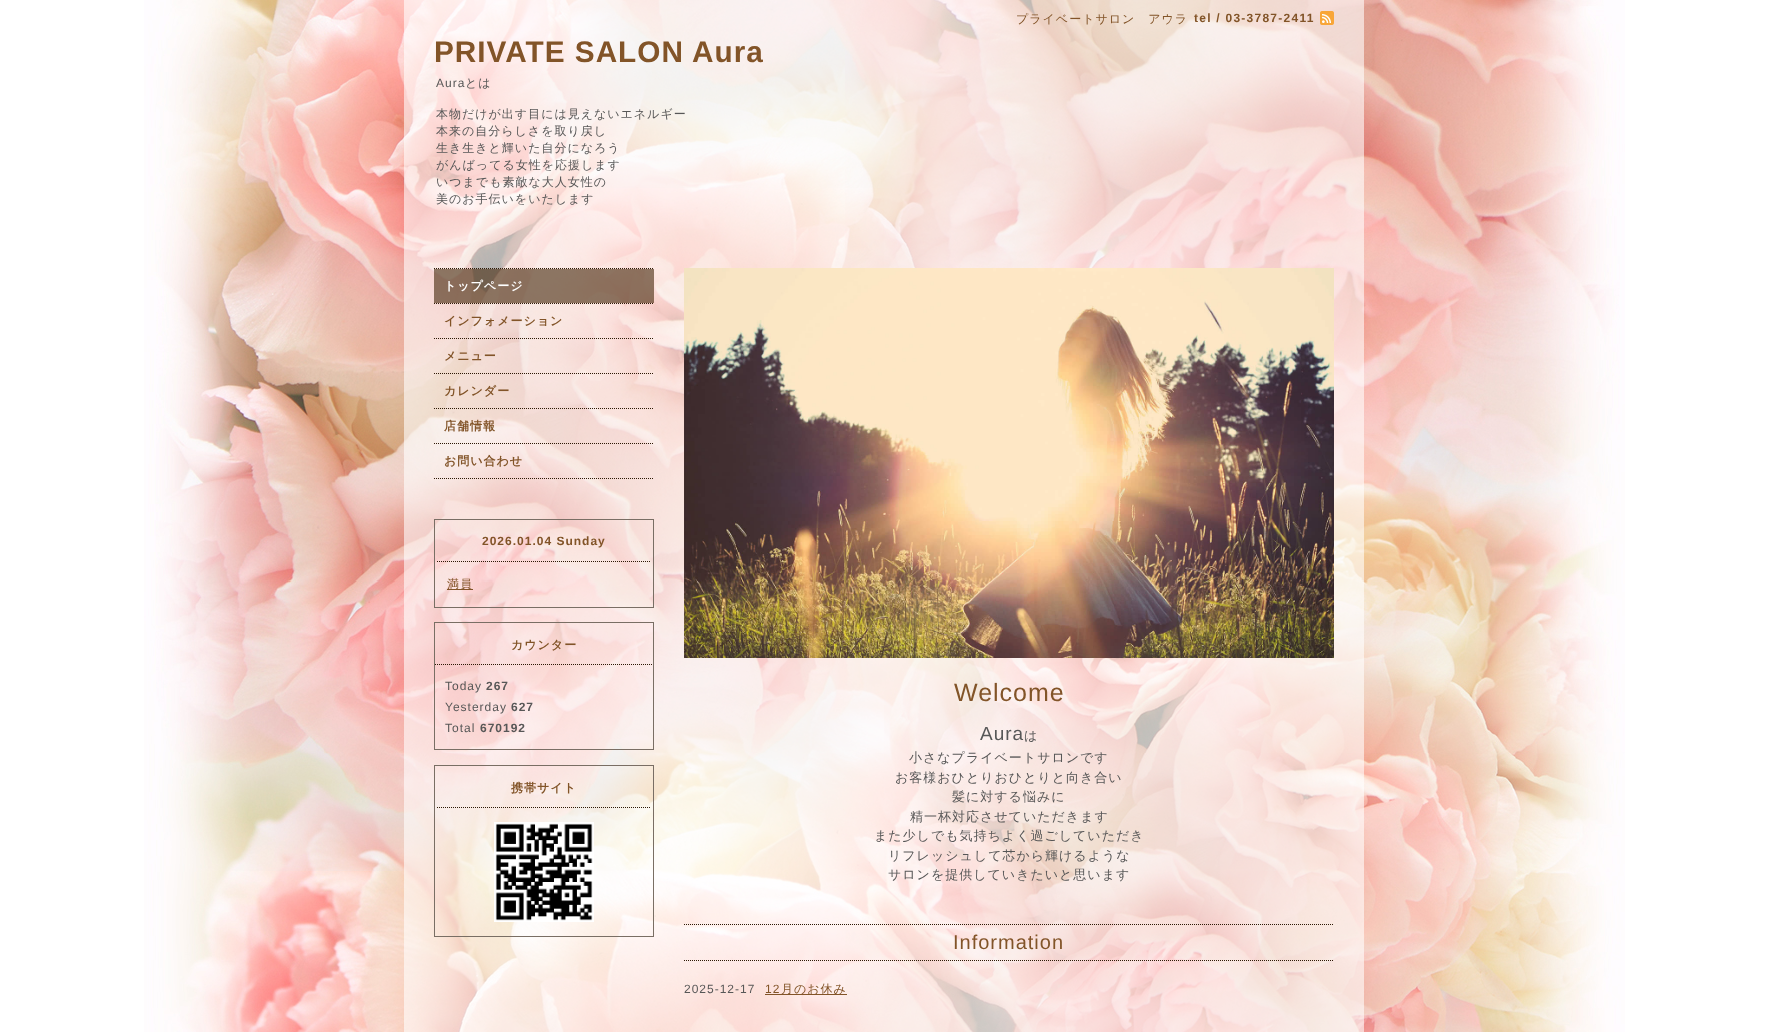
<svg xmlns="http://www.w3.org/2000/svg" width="1768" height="1032">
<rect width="100%" height="100%" fill="#fff"/>
<image x="144" y="0" width="1481" height="1032" href="media/1.png"/>
<rect x="404" width="960" height="1032" fill="#ffffff99"/>
<text x="1016" y="23" style="font-family:WenQuanYi Zen Hei;font-size:12px;font-weight:500;letter-spacing:1px;fill:#825428">プライベートサロン　アウラ</text>
<text x="1194" y="22" style="font-family:Liberation Sans;font-size:12px;font-weight:bold;letter-spacing:1.25px;fill:#825428">tel / 03-3787-2411</text>
<image x="1320" y="11" width="14" height="14" href="media/2.png"/>
<text x="434" y="62" style="font-family:Liberation Sans;font-size:29.75px;font-weight:bold;letter-spacing:1px;fill:#825428">PRIVATE SALON Aura</text>
<text x="436" y="87" style="font-family:Liberation Sans;font-size:12px;letter-spacing:1px;fill:#575757">Aura</text>
<text x="465" y="87" style="font-family:WenQuanYi Zen Hei;font-size:12px;font-weight:500;letter-spacing:1px;fill:#575757">とは</text>
<text x="436" y="118" style="font-family:WenQuanYi Zen Hei;font-size:12px;font-weight:500;letter-spacing:1px;fill:#575757">本物だけが出す目には見えないエネルギー</text>
<text x="436" y="135" style="font-family:WenQuanYi Zen Hei;font-size:12px;font-weight:500;letter-spacing:1px;fill:#575757">本来の自分らしさを取り戻し</text>
<text x="436" y="152" style="font-family:WenQuanYi Zen Hei;font-size:12px;font-weight:500;letter-spacing:1px;fill:#575757">生き生きと輝いた自分になろう</text>
<text x="436" y="169" style="font-family:WenQuanYi Zen Hei;font-size:12px;font-weight:500;letter-spacing:1px;fill:#575757">がんばってる女性を応援します</text>
<text x="436" y="186" style="font-family:WenQuanYi Zen Hei;font-size:12px;font-weight:500;letter-spacing:1px;fill:#575757">いつまでも素敵な大人女性の</text>
<text x="436" y="203" style="font-family:WenQuanYi Zen Hei;font-size:12px;font-weight:500;letter-spacing:1px;fill:#575757">美のお手伝いをいたします</text>
<path d="M434 268.5h220" fill="none" stroke="#2d1905" stroke-dasharray="1 1"/>
<path d="M434 303.5h220" fill="none" stroke="#2d1905" stroke-dasharray="1 1"/>
<rect x="434" y="269" width="220" height="34" fill="#43260a99"/>
<text x="444" y="290" style="font-family:WenQuanYi Zen Hei;font-size:12px;font-weight:bold;letter-spacing:1px;fill:#fff">トップページ</text>
<path d="M434 338.5h220" fill="none" stroke="#2d1905" stroke-dasharray="1 1"/>
<text x="444" y="325" style="font-family:WenQuanYi Zen Hei;font-size:12px;font-weight:bold;letter-spacing:1px;fill:#825428">インフォメーション</text>
<path d="M434 373.5h220" fill="none" stroke="#2d1905" stroke-dasharray="1 1"/>
<text x="444" y="360" style="font-family:WenQuanYi Zen Hei;font-size:12px;font-weight:bold;letter-spacing:1px;fill:#825428">メニュー</text>
<path d="M434 408.5h220" fill="none" stroke="#2d1905" stroke-dasharray="1 1"/>
<text x="444" y="395" style="font-family:WenQuanYi Zen Hei;font-size:12px;font-weight:bold;letter-spacing:1px;fill:#825428">カレンダー</text>
<path d="M434 443.5h220" fill="none" stroke="#2d1905" stroke-dasharray="1 1"/>
<text x="444" y="430" style="font-family:WenQuanYi Zen Hei;font-size:12px;font-weight:bold;letter-spacing:1px;fill:#825428">店舗情報</text>
<path d="M434 478.5h220" fill="none" stroke="#2d1905" stroke-dasharray="1 1"/>
<text x="444" y="465" style="font-family:WenQuanYi Zen Hei;font-size:12px;font-weight:bold;letter-spacing:1px;fill:#825428">お問い合わせ</text>
<rect x="434.5" y="519.5" width="219" height="88" fill="none" stroke="#796e64"/>
<text x="482" y="545" style="font-family:Liberation Sans;font-size:12px;font-weight:bold;letter-spacing:1px;fill:#825428">2026.01.04 Sunday</text>
<path d="M437 561.5h214" fill="none" stroke="#2d1905" stroke-dasharray="1 1"/>
<rect x="447" y="589" width="26" height="1" fill="#825428"/>
<text x="447" y="588" style="font-family:WenQuanYi Zen Hei;font-size:12px;font-weight:500;letter-spacing:1px;fill:#825428">満員</text>
<rect x="434.5" y="622.5" width="219" height="127" fill="none" stroke="#796e64"/>
<path d="M435 664.5h218" fill="none" stroke="#2d1905" stroke-dasharray="1 1"/>
<text x="511" y="649" style="font-family:WenQuanYi Zen Hei;font-size:12px;font-weight:bold;letter-spacing:1px;fill:#825428">カウンター</text>
<text x="445" y="690" style="font-family:Liberation Sans;font-size:12px;letter-spacing:1px;fill:#575757">Today</text>
<text x="486" y="690" style="font-family:Liberation Sans;font-size:12px;font-weight:bold;letter-spacing:1px;fill:#575757">267</text>
<text x="445" y="711" style="font-family:Liberation Sans;font-size:12px;letter-spacing:1px;fill:#575757">Yesterday</text>
<text x="511" y="711" style="font-family:Liberation Sans;font-size:12px;font-weight:bold;letter-spacing:1px;fill:#575757">627</text>
<text x="445" y="732" style="font-family:Liberation Sans;font-size:12px;letter-spacing:1px;fill:#575757">Total</text>
<text x="480" y="732" style="font-family:Liberation Sans;font-size:12px;font-weight:bold;letter-spacing:1px;fill:#575757">670192</text>
<rect x="434.5" y="765.5" width="219" height="171" fill="none" stroke="#796e64"/>
<path d="M437 807.5h214" fill="none" stroke="#2d1905" stroke-dasharray="1 1"/>
<text x="511" y="792" style="font-family:WenQuanYi Zen Hei;font-size:12px;font-weight:bold;letter-spacing:1px;fill:#825428">携帯サイト</text>
<image x="494" y="822" width="100" height="100" href="media/3.png"/>
<image x="684" y="268" width="650" height="390" href="media/4.png"/>
<text x="954" y="701" style="font-family:Liberation Sans;font-size:25px;letter-spacing:1px;fill:#825428">Welcome</text>
<text x="980" y="740" style="font-family:Liberation Sans;font-size:19px;letter-spacing:1px;fill:#575757">Aura</text>
<text x="1024" y="740" style="font-family:WenQuanYi Zen Hei;font-size:13px;font-weight:500;letter-spacing:1px;fill:#575757">は</text>
<text x="909" y="762" style="font-family:WenQuanYi Zen Hei;font-size:13px;font-weight:500;letter-spacing:1px;fill:#575757">小さなプライベートサロンです</text>
<text x="895" y="782" style="font-family:WenQuanYi Zen Hei;font-size:13px;font-weight:500;letter-spacing:1px;fill:#575757">お客様おひとりおひとりと向き合い</text>
<text x="952" y="801" style="font-family:WenQuanYi Zen Hei;font-size:13px;font-weight:500;letter-spacing:1px;fill:#575757">髪に対する悩みに</text>
<text x="910" y="821" style="font-family:WenQuanYi Zen Hei;font-size:13px;font-weight:500;letter-spacing:1px;fill:#575757">精一杯対応させていただきます</text>
<text x="874" y="840" style="font-family:WenQuanYi Zen Hei;font-size:13px;font-weight:500;letter-spacing:1px;fill:#575757">また少しでも気持ちよく過ごしていただき</text>
<text x="888" y="860" style="font-family:WenQuanYi Zen Hei;font-size:13px;font-weight:500;letter-spacing:1px;fill:#575757">リフレッシュして芯から輝けるような</text>
<text x="888" y="879" style="font-family:WenQuanYi Zen Hei;font-size:13px;font-weight:500;letter-spacing:1px;fill:#575757">サロンを提供していきたいと思います</text>
<path d="M684 924.5h650" fill="none" stroke="#2d1905" stroke-dasharray="1 1"/>
<path d="M684 960.5h650" fill="none" stroke="#2d1905" stroke-dasharray="1 1"/>
<text x="953" y="949" style="font-family:Liberation Sans;font-size:20px;letter-spacing:1px;fill:#825428">Information</text>
<text x="684" y="993" style="font-family:Liberation Sans;font-size:12px;letter-spacing:1px;fill:#575757">2025-12-17</text>
<text x="765" y="993" style="font-family:Liberation Sans;font-size:12px;letter-spacing:1px;fill:#825428">12</text>
<rect x="765" y="994" width="82" height="1" fill="#825428"/>
<text x="781" y="993" style="font-family:WenQuanYi Zen Hei;font-size:12px;font-weight:500;letter-spacing:1px;fill:#825428">月のお休み</text>
</svg>
